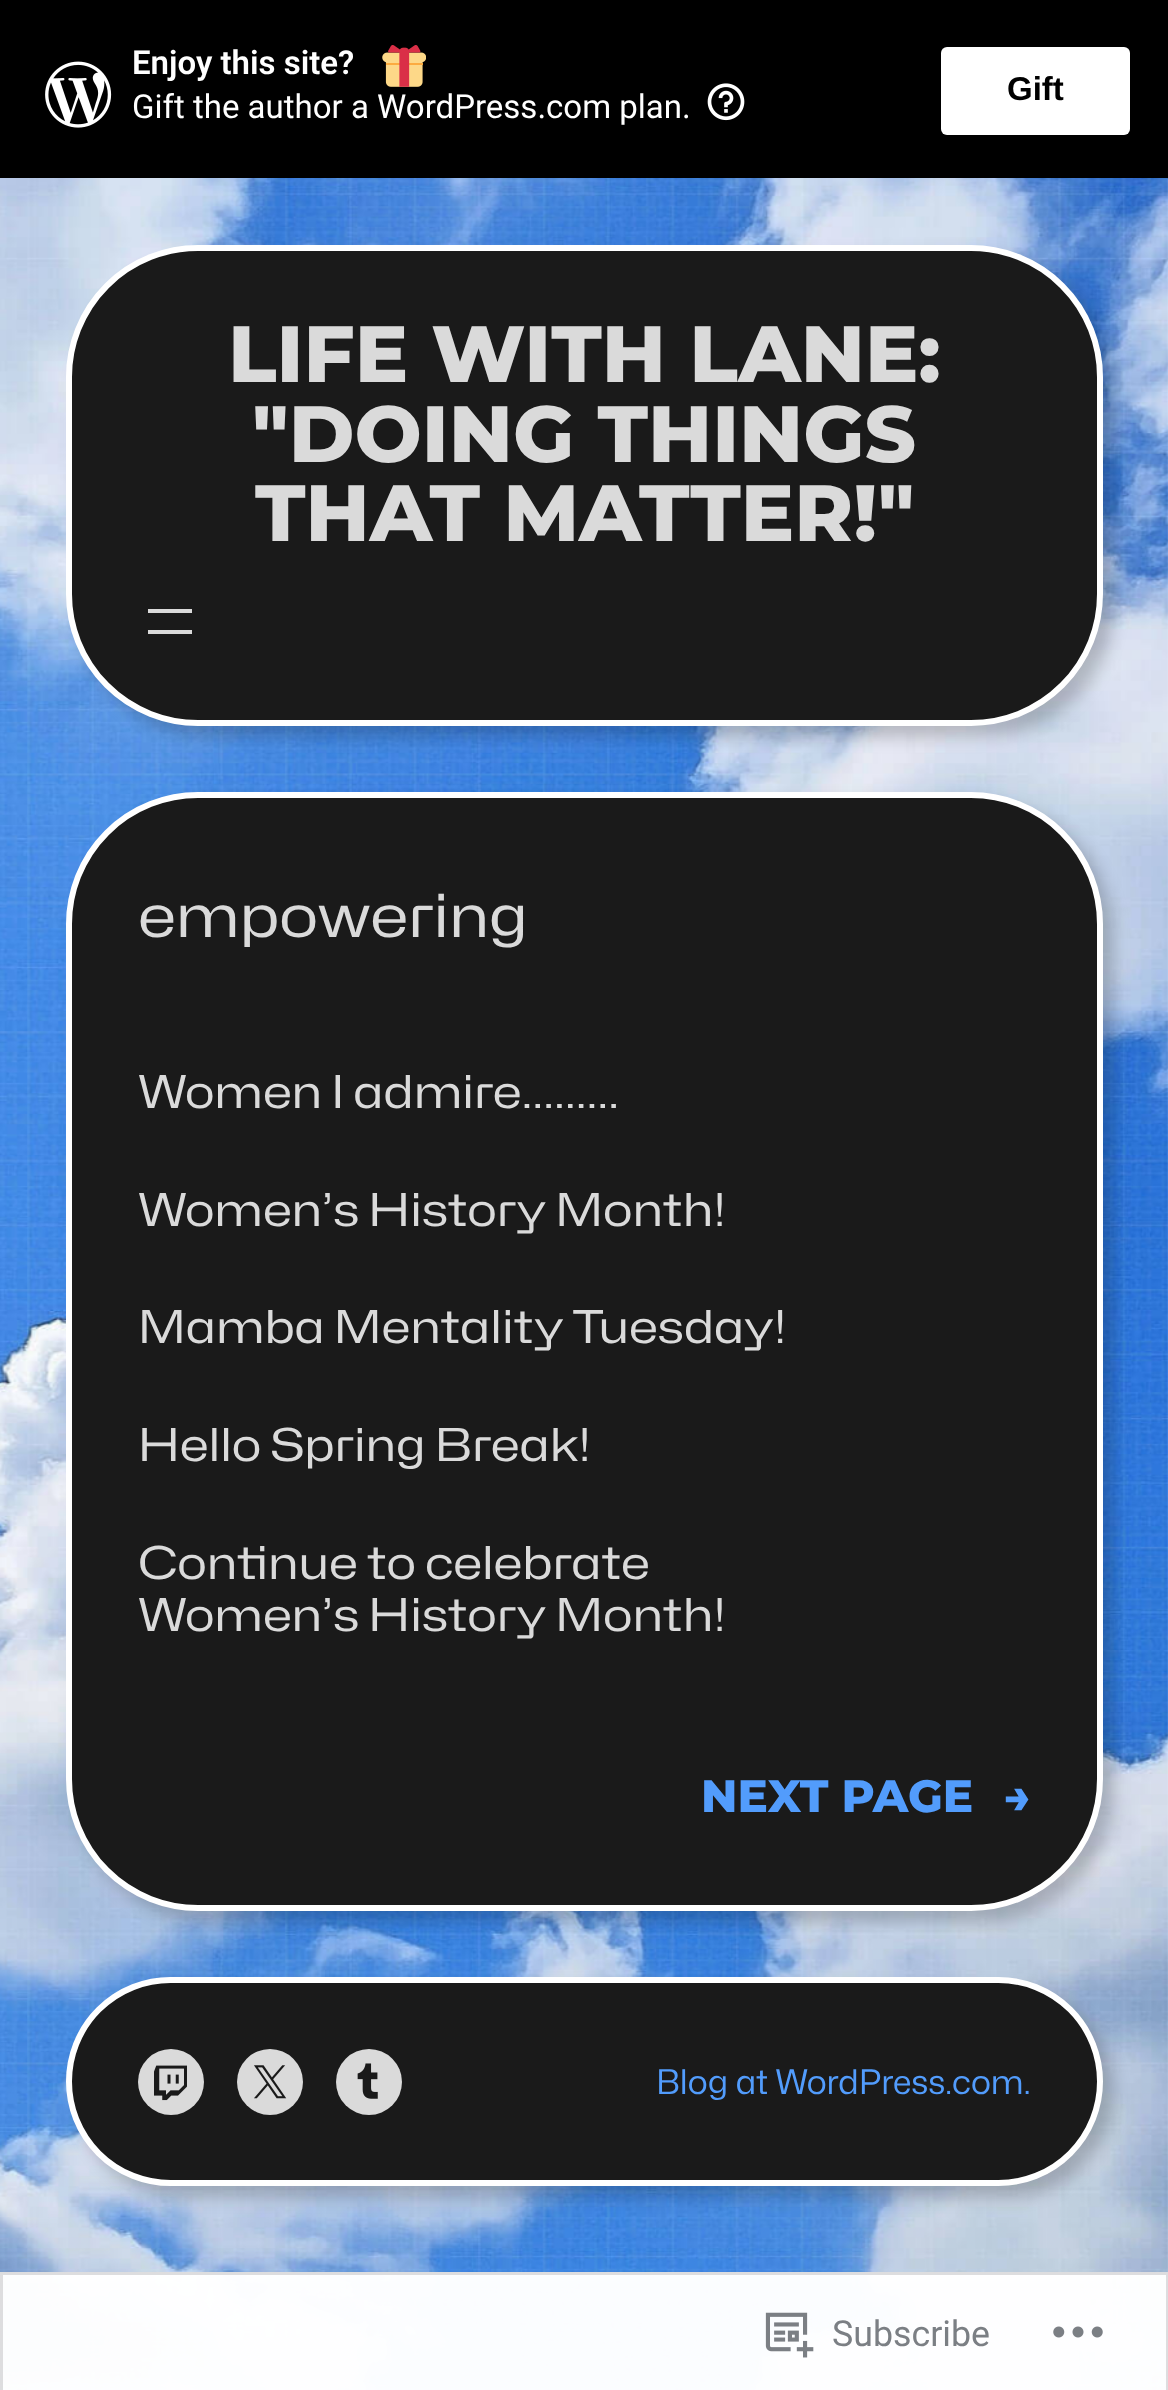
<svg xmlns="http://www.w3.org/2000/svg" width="1168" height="2390">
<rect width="100%" height="100%" fill="#fff"/>
<rect width="1168" height="179" fill="#000"/>
<image x="45" y="61" width="67" height="67" href="media/1.png"/>
<text x="132" y="74" style="font-family:Roboto;font-size:33px;font-weight:600;fill:#fff">Enjoy this site?</text>
<image x="382" y="45" width="44" height="42" href="media/2.png"/>
<text x="132" y="118" style="font-family:Roboto;font-size:33px;fill:#fff">Gift the author a WordPress.com plan.</text>
<image x="707" y="83" width="38" height="38" href="media/3.png"/>
<rect x="941" y="47" width="189" height="88" rx="6" fill="#fff"/>
<text x="1007" y="100" style="font-family:Liberation Sans;font-size:33px;font-weight:bold;fill:#000">Gift</text>
<image x="0" y="178" width="1168" height="2212" href="media/4.png"/>
<rect x="77" y="256" width="1037" height="481" rx="132" fill="#00000033" filter="blur(8px)"/>
<rect x="69" y="248" width="1031" height="475" rx="129" fill="#1a1a1a" stroke="#fff" stroke-width="6"/>
<text x="228" y="382" style="font-family:Montserrat;font-size:79.6px;font-weight:800;fill:#dadada">LIFE WITH LANE:</text>
<text x="252" y="462" style="font-family:Montserrat;font-size:79.6px;font-weight:800;fill:#dadada">"DOING THINGS</text>
<text x="255" y="541" style="font-family:Montserrat;font-size:79.6px;font-weight:800;fill:#dadada">THAT MATTER!"</text>
<rect x="148" y="609" width="44" height="4" fill="#dadada"/>
<rect x="148" y="630" width="44" height="4" fill="#dadada"/>
<rect x="77" y="803" width="1037" height="1119" rx="132" fill="#00000033" filter="blur(8px)"/>
<rect x="69" y="795" width="1031" height="1113" rx="129" fill="#1a1a1a" stroke="#fff" stroke-width="6"/>
<text x="138" y="937" style="font-family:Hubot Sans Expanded;font-size:59.5px;fill:#dadada">empowering</text>
<text x="138" y="1108" style="font-family:Hubot Sans Expanded;font-size:45.25px;fill:#dadada">Women I admire………</text>
<text x="138" y="1226" style="font-family:Hubot Sans Expanded;font-size:45.25px;fill:#dadada">Women’s History Month!</text>
<text x="138" y="1343" style="font-family:Hubot Sans Expanded;font-size:45.25px;fill:#dadada">Mamba Mentality Tuesday!</text>
<text x="138" y="1461" style="font-family:Hubot Sans Expanded;font-size:45.25px;fill:#dadada">Hello Spring Break!</text>
<text x="138" y="1579" style="font-family:Hubot Sans Expanded;font-size:45.25px;fill:#dadada">Continue to celebrate</text>
<text x="138" y="1631" style="font-family:Hubot Sans Expanded;font-size:45.25px;fill:#dadada">Women’s History Month!</text>
<text x="701" y="1812" style="font-family:Montserrat;font-size:45.25px;font-weight:800;fill:#529cfc">NEXT PAGE</text>
<text x="1004" y="1812" style="font-family:Montserrat;font-size:45.25px;font-weight:800;fill:#529cfc">→</text>
<rect x="77" y="1988" width="1037" height="209" rx="104.5" fill="#00000033" filter="blur(8px)"/>
<rect x="69" y="1980" width="1031" height="203" rx="101.5" fill="#1a1a1a" stroke="#fff" stroke-width="6"/>
<circle cx="171" cy="2082" r="33" fill="#dadada"/>
<image x="154" y="2065" width="33" height="36" href="media/5.png"/>
<circle cx="270" cy="2082" r="33" fill="#dadada"/>
<image x="254" y="2065" width="33" height="34" href="media/6.png"/>
<circle cx="369" cy="2082" r="33" fill="#dadada"/>
<image x="357" y="2063" width="21" height="36" href="media/7.png"/>
<text x="656" y="2094" style="font-family:Mona Sans;font-size:34px;fill:#529cfc">Blog at WordPress.com.</text>
<rect y="2272" width="1168" height="118" fill="#fffffffa"/>
<rect x="1.5" y="2273.5" width="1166" height="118" fill="none" stroke="#dcdcdefa" stroke-width="3"/>
<image x="765" y="2312" width="49" height="46" href="media/8.png"/>
<text x="832" y="2346" style="font-family:Roboto;font-size:35.75px;fill:#7b7f84">Subscribe</text>
<image x="1053" y="2326" width="50" height="12" href="media/9.png"/>
</svg>
